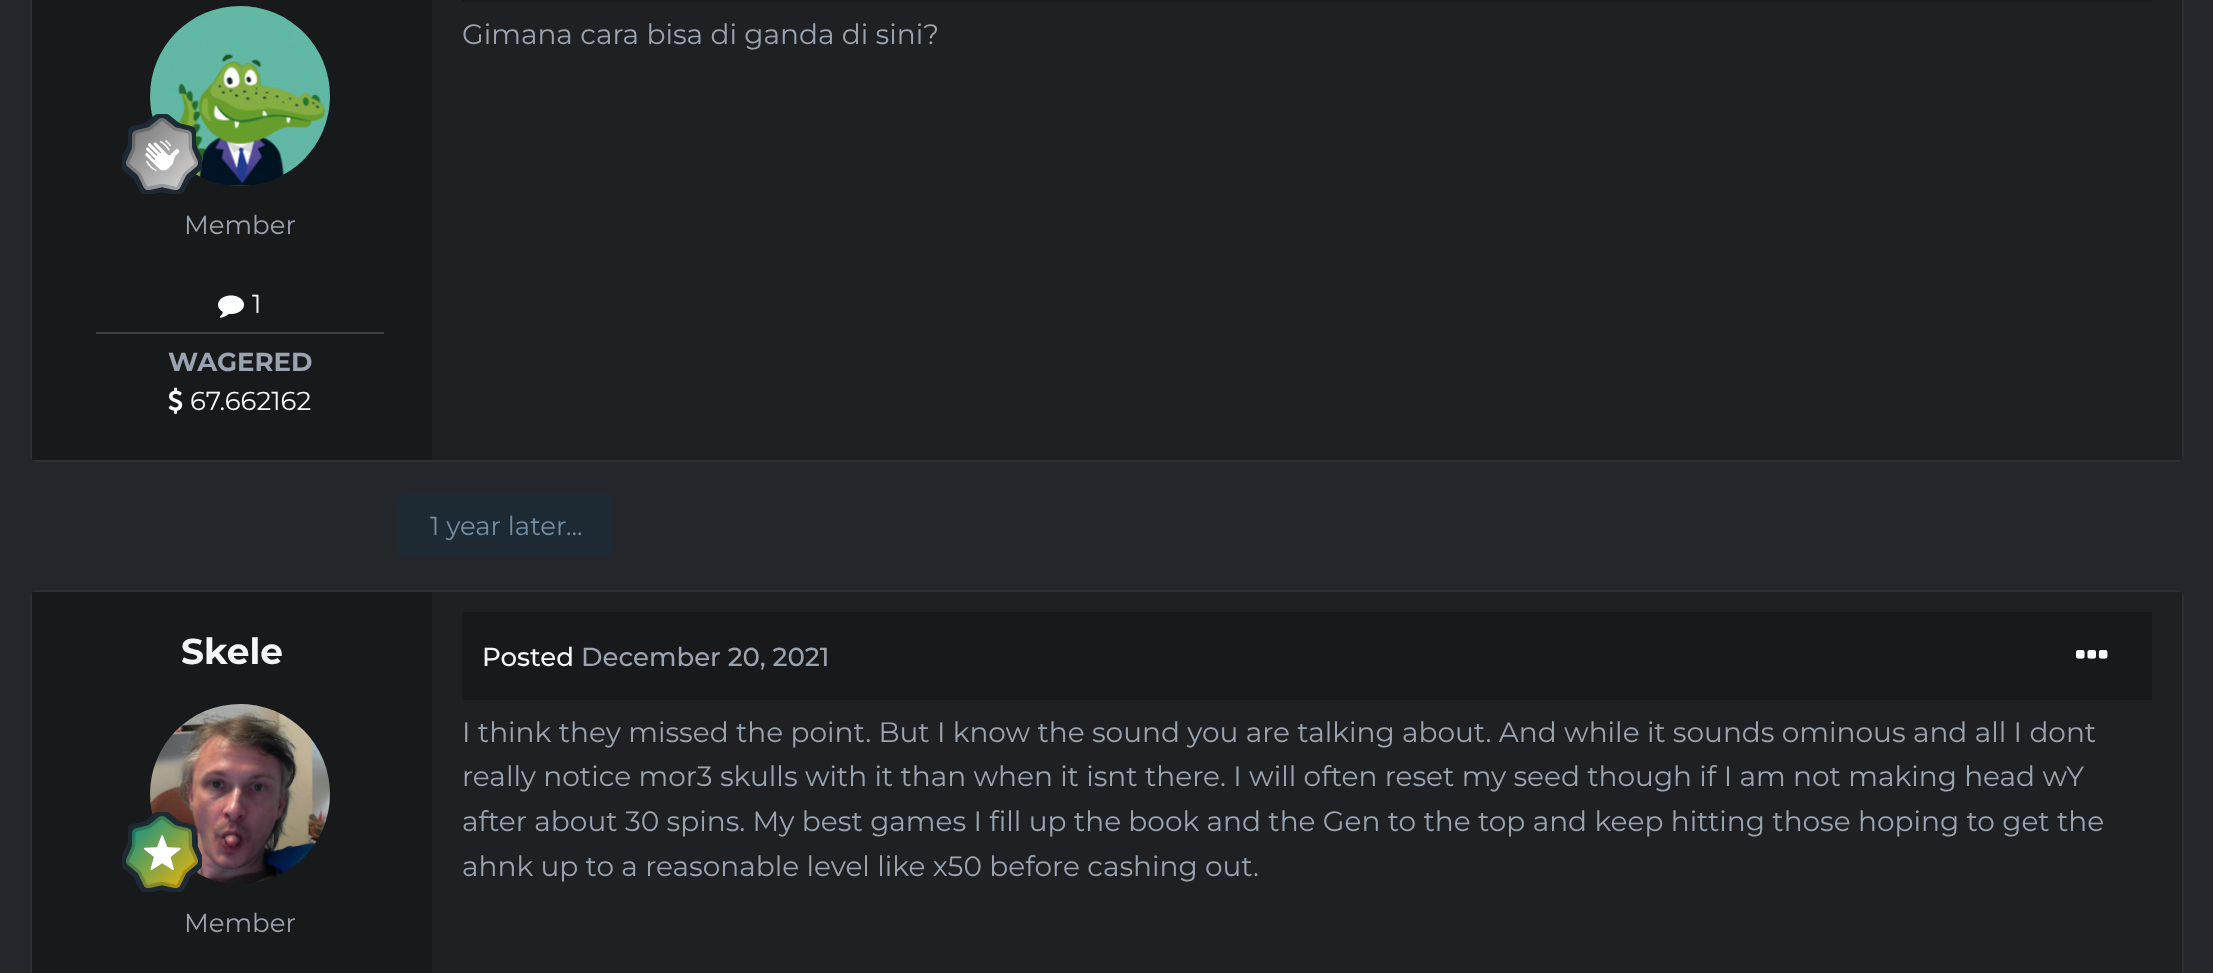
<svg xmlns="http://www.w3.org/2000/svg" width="2213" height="973">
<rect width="100%" height="100%" fill="#24262b"/>
<rect x="31" y="-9" width="2152" height="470" rx="7" fill="none" stroke="#2d3035" stroke-width="2"/>
<rect x="432" width="1750" height="460" fill="#1e2024"/>
<rect x="462" width="1690" height="2" fill="#17191b"/>
<text x="462" y="44" style="font-family:Montserrat;font-size:28px;fill:#99a4b0">Gimana cara bisa di ganda di sini?</text>
<rect x="32" width="400" height="460" fill="#17191b"/>
<image x="150" y="6" width="180" height="180" href="media/1.png"/>
<image x="122" y="114" width="80" height="80" href="media/2.png"/>
<text x="184" y="234" style="font-family:Montserrat;font-size:26px;fill:#99a4b0">Member</text>
<image x="218" y="295" width="26" height="23" href="media/3.png"/>
<text x="252" y="313" style="font-family:Montserrat;font-size:26px;fill:#f5f6f7">1</text>
<rect x="96" y="332" width="288" height="2" fill="#3c404a"/>
<text x="168" y="371" style="font-family:Montserrat;font-size:26px;font-weight:bold;fill:#99a4b0">WAGERED</text>
<image x="168" y="387" width="15" height="27" href="media/4.png"/>
<text x="190" y="410" style="font-family:Montserrat;font-size:26px;fill:#f5f6f7">67.662162</text>
<rect x="398" y="494" width="216" height="64" rx="8" fill="#1d2a34"/>
<text x="430" y="535" style="font-family:Montserrat;font-size:26px;fill:#748da2">1 year later...</text>
<rect x="31" y="591" width="2152" height="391" rx="7" fill="none" stroke="#2d3035" stroke-width="2"/>
<rect x="32" y="592" width="400" height="381" fill="#17191b"/>
<text x="181" y="664" style="font-family:Montserrat;font-size:36px;font-weight:bold;fill:#f5f6f7">Skele</text>
<image x="150" y="704" width="180" height="180" href="media/5.png"/>
<image x="122" y="812" width="80" height="80" href="media/6.png"/>
<text x="184" y="932" style="font-family:Montserrat;font-size:26px;fill:#99a4b0">Member</text>
<rect x="432" y="592" width="1750" height="381" fill="#1e2024"/>
<rect x="462" y="612" width="1690" height="88" fill="#17191b"/>
<text x="482" y="666" style="font-family:Montserrat;font-size:26px;font-weight:500;fill:#f5f6f7">Posted</text>
<text x="581" y="666" style="font-family:Montserrat;font-size:26px;font-weight:500;fill:#99a4b0">December 20, 2021</text>
<image x="2076" y="650" width="32" height="9" href="media/7.png"/>
<text x="462" y="742" style="font-family:Montserrat;font-size:28px;fill:#99a4b0">I think they missed the point. But I know the sound you are talking about. And while it sounds ominous and all I dont</text>
<text x="462" y="786" style="font-family:Montserrat;font-size:28px;fill:#99a4b0">really notice mor3 skulls with it than when it isnt there. I will often reset my seed though if I am not making head wY</text>
<text x="462" y="831" style="font-family:Montserrat;font-size:28px;fill:#99a4b0">after about 30 spins. My best games I fill up the book and the Gen to the top and keep hitting those hoping to get the</text>
<text x="462" y="876" style="font-family:Montserrat;font-size:28px;fill:#99a4b0">ahnk up to a reasonable level like x50 before cashing out.</text>
</svg>
